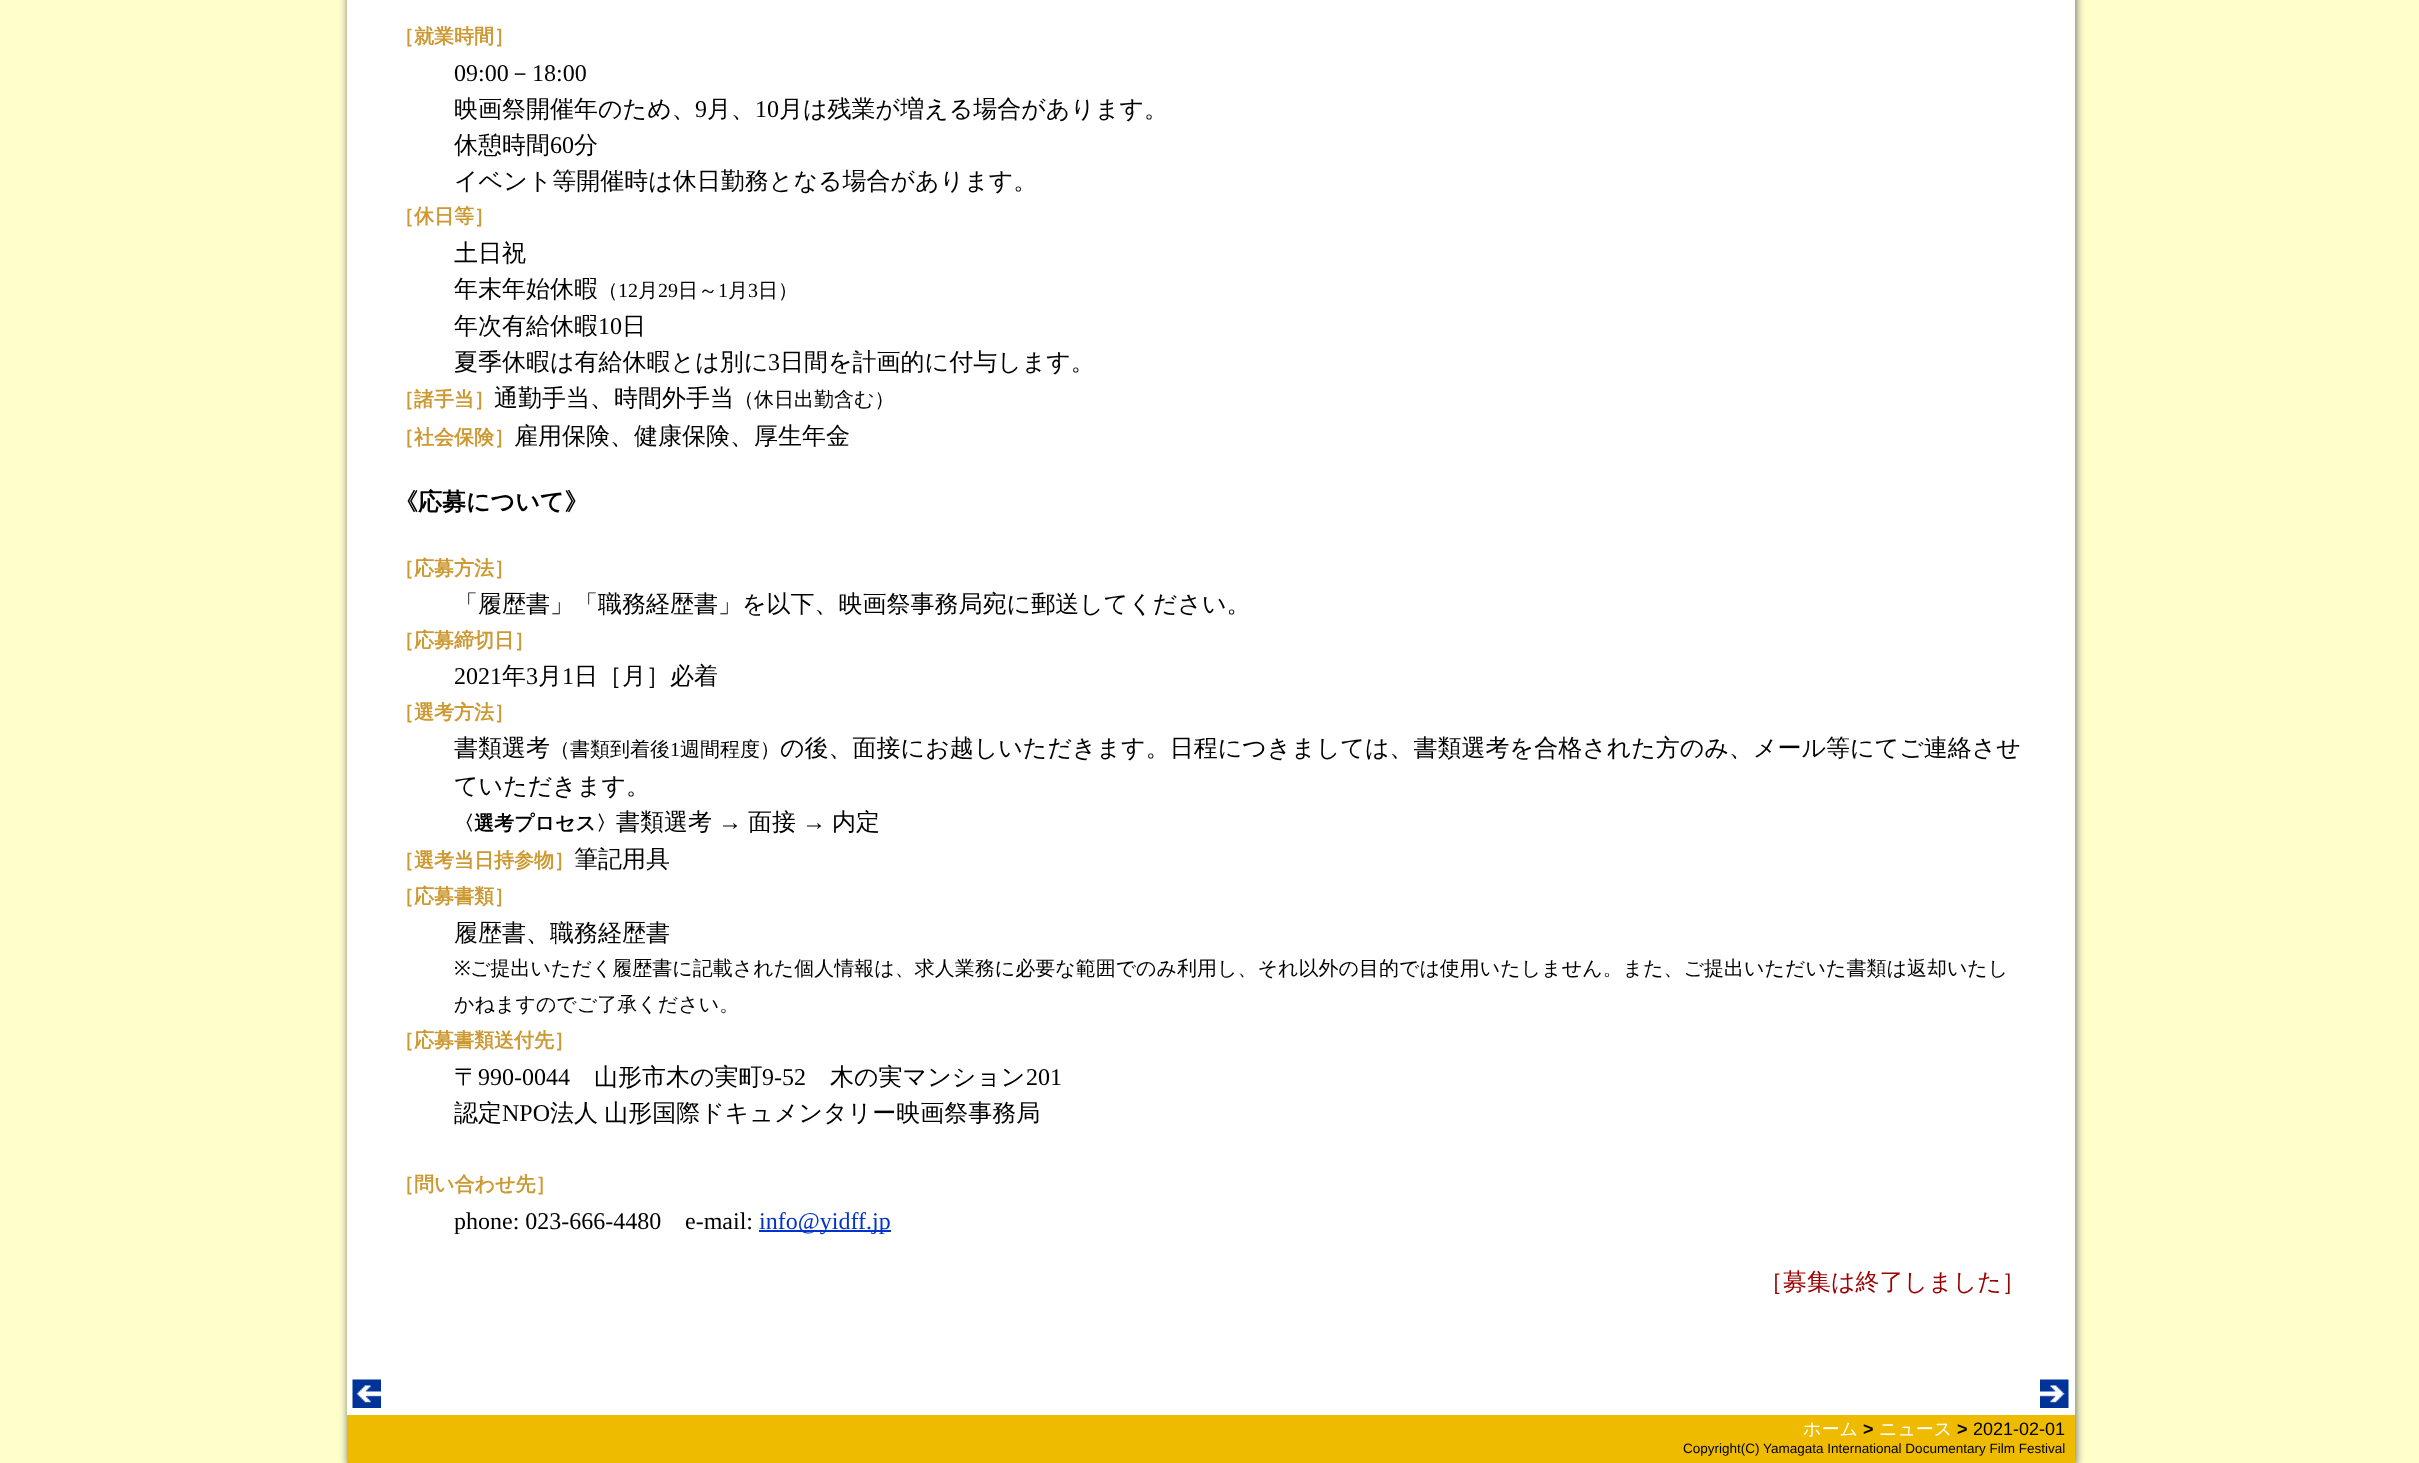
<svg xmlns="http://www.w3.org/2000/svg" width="2419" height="1463">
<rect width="100%" height="100%" fill="#ffc"/>
<rect x="348" y="-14" width="1728" height="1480" fill="#666" filter="blur(4.5px)"/>
<rect x="347" y="1415" width="1728" height="48" fill="#eb0"/>
<rect x="347" width="1728" height="1415" fill="#fff"/>
<text x="394" y="43" style="font-family:WenQuanYi Zen Hei;font-size:20px;font-weight:bold;fill:#c93">［就業時間］</text>
<text x="454" y="81" style="font-family:Liberation Serif;font-size:24px;fill:#000">09:00</text>
<text x="508" y="81" style="font-family:WenQuanYi Zen Hei;font-size:24px;font-weight:500;fill:#000">－</text>
<text x="532" y="81" style="font-family:Liberation Serif;font-size:24px;fill:#000">18:00</text>
<text x="454" y="117" style="font-family:WenQuanYi Zen Hei;font-size:24px;font-weight:500;fill:#000">映画祭開催年のため、</text>
<text x="695" y="117" style="font-family:Liberation Serif;font-size:24px;fill:#000">9</text>
<text x="707" y="117" style="font-family:WenQuanYi Zen Hei;font-size:24px;font-weight:500;fill:#000">月、</text>
<text x="755" y="117" style="font-family:Liberation Serif;font-size:24px;fill:#000">10</text>
<text x="779" y="117" style="font-family:WenQuanYi Zen Hei;font-size:24px;font-weight:500;fill:#000">月は残業が増える場合があります。</text>
<text x="454" y="153" style="font-family:WenQuanYi Zen Hei;font-size:24px;font-weight:500;fill:#000">休憩時間</text>
<text x="550" y="153" style="font-family:Liberation Serif;font-size:24px;fill:#000">60</text>
<text x="574" y="153" style="font-family:WenQuanYi Zen Hei;font-size:24px;font-weight:500;fill:#000">分</text>
<text x="454" y="189" style="font-family:WenQuanYi Zen Hei;font-size:24px;font-weight:500;fill:#000">イベント等開催時は休日勤務となる場合があります。</text>
<text x="394" y="223" style="font-family:WenQuanYi Zen Hei;font-size:20px;font-weight:bold;fill:#c93">［休日等］</text>
<text x="454" y="261" style="font-family:WenQuanYi Zen Hei;font-size:24px;font-weight:500;fill:#000">土日祝</text>
<text x="454" y="297" style="font-family:WenQuanYi Zen Hei;font-size:24px;font-weight:500;fill:#000">年末年始休暇</text>
<text x="598" y="297" style="font-family:WenQuanYi Zen Hei;font-size:20px;font-weight:500;fill:#000">（</text>
<text x="618" y="297" style="font-family:Liberation Serif;font-size:20px;fill:#000">12</text>
<text x="638" y="297" style="font-family:WenQuanYi Zen Hei;font-size:20px;font-weight:500;fill:#000">月</text>
<text x="658" y="297" style="font-family:Liberation Serif;font-size:20px;fill:#000">29</text>
<text x="678" y="297" style="font-family:WenQuanYi Zen Hei;font-size:20px;font-weight:500;fill:#000">日～</text>
<text x="718" y="297" style="font-family:Liberation Serif;font-size:20px;fill:#000">1</text>
<text x="728" y="297" style="font-family:WenQuanYi Zen Hei;font-size:20px;font-weight:500;fill:#000">月</text>
<text x="748" y="297" style="font-family:Liberation Serif;font-size:20px;fill:#000">3</text>
<text x="758" y="297" style="font-family:WenQuanYi Zen Hei;font-size:20px;font-weight:500;fill:#000">日）</text>
<text x="454" y="334" style="font-family:WenQuanYi Zen Hei;font-size:24px;font-weight:500;fill:#000">年次有給休暇</text>
<text x="598" y="334" style="font-family:Liberation Serif;font-size:24px;fill:#000">10</text>
<text x="622" y="334" style="font-family:WenQuanYi Zen Hei;font-size:24px;font-weight:500;fill:#000">日</text>
<text x="454" y="370" style="font-family:WenQuanYi Zen Hei;font-size:24px;font-weight:500;fill:#000">夏季休暇は有給休暇とは別に</text>
<text x="768" y="370" style="font-family:Liberation Serif;font-size:24px;fill:#000">3</text>
<text x="780" y="370" style="font-family:WenQuanYi Zen Hei;font-size:24px;font-weight:500;fill:#000">日間を計画的に付与します。</text>
<text x="394" y="406" style="font-family:WenQuanYi Zen Hei;font-size:20px;font-weight:bold;fill:#c93">［諸手当］</text>
<text x="494" y="406" style="font-family:WenQuanYi Zen Hei;font-size:24px;font-weight:500;fill:#000">通勤手当、時間外手当</text>
<text x="734" y="406" style="font-family:WenQuanYi Zen Hei;font-size:20px;font-weight:500;fill:#000">（休日出勤含む）</text>
<text x="394" y="444" style="font-family:WenQuanYi Zen Hei;font-size:20px;font-weight:bold;fill:#c93">［社会保険］</text>
<text x="514" y="444" style="font-family:WenQuanYi Zen Hei;font-size:24px;font-weight:500;fill:#000">雇用保険、健康保険、厚生年金</text>
<text x="394" y="510" style="font-family:WenQuanYi Zen Hei;font-size:24px;font-weight:bold;fill:#000">《応募について》</text>
<text x="394" y="575" style="font-family:WenQuanYi Zen Hei;font-size:20px;font-weight:bold;fill:#c93">［応募方法］</text>
<text x="454" y="612" style="font-family:WenQuanYi Zen Hei;font-size:24px;font-weight:500;fill:#000">「履歴書」「職務経歴書」を以下、映画祭事務局宛に郵送してください。</text>
<text x="394" y="647" style="font-family:WenQuanYi Zen Hei;font-size:20px;font-weight:bold;fill:#c93">［応募締切日］</text>
<text x="454" y="684" style="font-family:Liberation Serif;font-size:24px;fill:#000">2021</text>
<text x="502" y="684" style="font-family:WenQuanYi Zen Hei;font-size:24px;font-weight:500;fill:#000">年</text>
<text x="526" y="684" style="font-family:Liberation Serif;font-size:24px;fill:#000">3</text>
<text x="538" y="684" style="font-family:WenQuanYi Zen Hei;font-size:24px;font-weight:500;fill:#000">月</text>
<text x="562" y="684" style="font-family:Liberation Serif;font-size:24px;fill:#000">1</text>
<text x="574" y="684" style="font-family:WenQuanYi Zen Hei;font-size:24px;font-weight:500;fill:#000">日［月］必着</text>
<text x="394" y="719" style="font-family:WenQuanYi Zen Hei;font-size:20px;font-weight:bold;fill:#c93">［選考方法］</text>
<text x="454" y="756" style="font-family:WenQuanYi Zen Hei;font-size:24px;font-weight:500;fill:#000">書類選考</text>
<text x="550" y="756" style="font-family:WenQuanYi Zen Hei;font-size:20px;font-weight:500;fill:#000">（書類到着後</text>
<text x="670" y="756" style="font-family:Liberation Serif;font-size:20px;fill:#000">1</text>
<text x="680" y="756" style="font-family:WenQuanYi Zen Hei;font-size:20px;font-weight:500;fill:#000">週間程度）</text>
<text x="780" y="756" style="font-family:WenQuanYi Zen Hei;font-size:24px;font-weight:500;fill:#000">の後、面接にお越しいただきます。日程につきましては、書類選考を合格された方のみ、メール等にてご連絡させ</text>
<text x="454" y="794" style="font-family:WenQuanYi Zen Hei;font-size:24px;font-weight:500;fill:#000">ていただきます。</text>
<text x="454" y="830" style="font-family:WenQuanYi Zen Hei;font-size:20px;font-weight:bold;fill:#000">〈選考プロセス〉</text>
<text x="616" y="830" style="font-family:WenQuanYi Zen Hei;font-size:24px;font-weight:500;fill:#000">書類選考</text>
<text x="718" y="830" style="font-family:Liberation Serif;font-size:24px;fill:#000">→</text>
<text x="748" y="830" style="font-family:WenQuanYi Zen Hei;font-size:24px;font-weight:500;fill:#000">面接</text>
<text x="802" y="830" style="font-family:Liberation Serif;font-size:24px;fill:#000">→</text>
<text x="832" y="830" style="font-family:WenQuanYi Zen Hei;font-size:24px;font-weight:500;fill:#000">内定</text>
<text x="394" y="867" style="font-family:WenQuanYi Zen Hei;font-size:20px;font-weight:bold;fill:#c93">［選考当日持参物］</text>
<text x="574" y="867" style="font-family:WenQuanYi Zen Hei;font-size:24px;font-weight:500;fill:#000">筆記用具</text>
<text x="394" y="903" style="font-family:WenQuanYi Zen Hei;font-size:20px;font-weight:bold;fill:#c93">［応募書類］</text>
<text x="454" y="941" style="font-family:WenQuanYi Zen Hei;font-size:24px;font-weight:500;fill:#000">履歴書、職務経歴書</text>
<text x="454" y="975" style="font-family:Noto Sans;font-size:20px;fill:#000">※</text>
<text x="470" y="975" style="font-family:WenQuanYi Zen Hei;font-size:20px;font-weight:500;fill:#000">ご提出いただく履歴書に記載された個人情報は、求人業務に必要な範囲でのみ利用し、それ以外の目的では使用いたしません。また、ご提出いただいた書類は返却いたし</text>
<text x="454" y="1011" style="font-family:WenQuanYi Zen Hei;font-size:20px;font-weight:500;fill:#000">かねますのでご了承ください。</text>
<text x="394" y="1047" style="font-family:WenQuanYi Zen Hei;font-size:20px;font-weight:bold;fill:#c93">［応募書類送付先］</text>
<text x="454" y="1085" style="font-family:WenQuanYi Zen Hei;font-size:24px;font-weight:500;fill:#000">〒</text>
<text x="478" y="1085" style="font-family:Liberation Serif;font-size:24px;fill:#000">990-0044</text>
<text x="594" y="1085" style="font-family:WenQuanYi Zen Hei;font-size:24px;font-weight:500;fill:#000">山形市木の実町</text>
<text x="762" y="1085" style="font-family:Liberation Serif;font-size:24px;fill:#000">9-52</text>
<text x="830" y="1085" style="font-family:WenQuanYi Zen Hei;font-size:24px;font-weight:500;fill:#000">木の実マンション</text>
<text x="1026" y="1085" style="font-family:Liberation Serif;font-size:24px;fill:#000">201</text>
<text x="454" y="1121" style="font-family:WenQuanYi Zen Hei;font-size:24px;font-weight:500;fill:#000">認定</text>
<text x="502" y="1121" style="font-family:Liberation Serif;font-size:24px;fill:#000">NPO</text>
<text x="550" y="1121" word-spacing="-1" style="font-family:WenQuanYi Zen Hei;font-size:24px;font-weight:500;fill:#000">法人 山形国際ドキュメンタリー映画祭事務局</text>
<text x="394" y="1191" style="font-family:WenQuanYi Zen Hei;font-size:20px;font-weight:bold;fill:#c93">［問い合わせ先］</text>
<text x="454" y="1229" style="font-family:Liberation Serif;font-size:24px;fill:#000">phone: 023-666-4480</text>
<text x="685" y="1229" style="font-family:Liberation Serif;font-size:24px;fill:#000">e-mail:</text>
<rect x="759" y="1230" width="132" height="2" fill="#03c"/>
<text x="759" y="1229" style="font-family:Liberation Serif;font-size:24px;fill:#03c">info@yidff.jp</text>
<text x="1759" y="1290" style="font-family:WenQuanYi Zen Hei;font-size:24px;font-weight:500;fill:#900">［募集は終了しました］</text>
<image x="352" y="1379" width="29" height="29" href="media/1.png"/>
<image x="2040" y="1379" width="29" height="29" href="media/2.png"/>
<text x="1803" y="1435" style="font-family:WenQuanYi Zen Hei;font-size:18px;font-weight:500;fill:#fff">ホーム</text>
<text x="1863" y="1435" style="font-family:Liberation Sans;font-size:18px;font-weight:bold;fill:#000">&gt;</text>
<text x="1879" y="1435" style="font-family:WenQuanYi Zen Hei;font-size:18px;font-weight:500;fill:#fff">ニュース</text>
<text x="1957" y="1435" style="font-family:Liberation Sans;font-size:18px;font-weight:bold;fill:#000">&gt;</text>
<text x="1973" y="1435" style="font-family:Liberation Sans;font-size:18px;fill:#000">2021-02-01</text>
<text x="1683" y="1453" style="font-family:Liberation Sans;font-size:13.5px;fill:#000">Copyright(C) Yamagata International Documentary Film Festival</text>
</svg>
